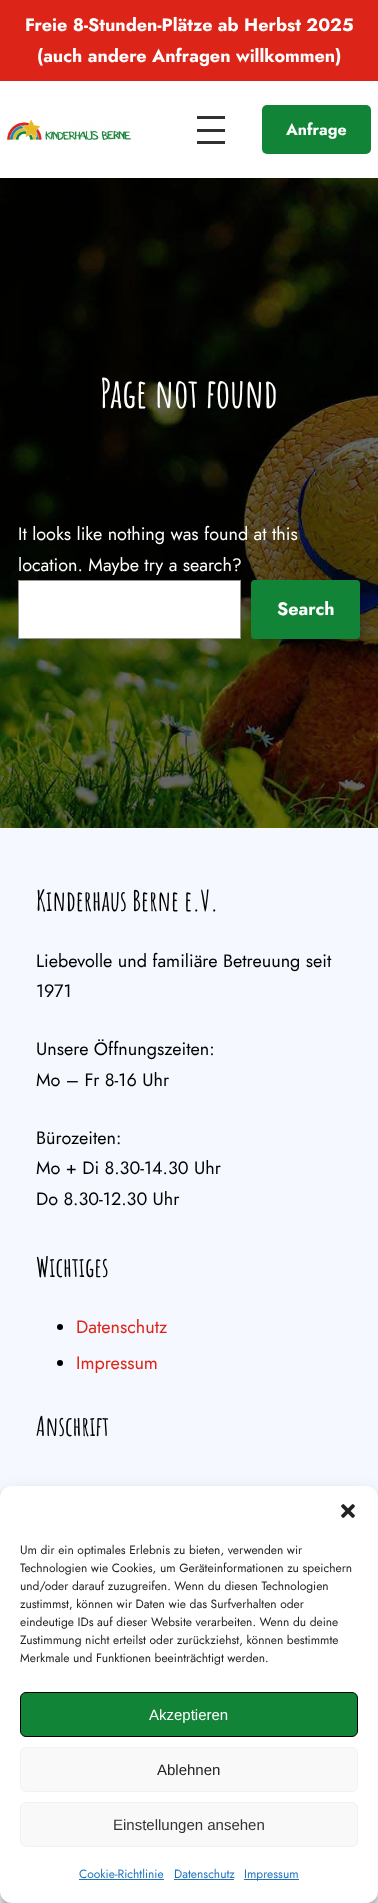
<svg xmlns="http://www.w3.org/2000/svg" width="378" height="1903">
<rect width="100%" height="100%" fill="#fff"/>
<rect width="378" height="81" fill="#dc2518"/>
<text x="25" y="31" style="font-family:Jost;font-size:18px;font-weight:bold;fill:#fff">Freie 8-Stunden-Plätze ab Herbst 2025</text>
<text x="37" y="62" style="font-family:Jost;font-size:18px;font-weight:bold;fill:#fff">(auch andere Anfragen willkommen)</text>
<image x="7" y="119" width="124" height="21" href="media/1.png"/>
<rect x="197" y="116" width="28" height="3" fill="#313131"/>
<rect x="197" y="129" width="28" height="3" fill="#313131"/>
<rect x="197" y="141" width="28" height="3" fill="#313131"/>
<rect x="262" y="105" width="109" height="49" rx="5" fill="#128438"/>
<text x="286" y="135" style="font-family:Jost;font-size:16px;font-weight:bold;fill:#fff">Anfrage</text>
<image x="0" y="178" width="378" height="650" href="media/2.png"/>
<text x="100" y="408" style="font-family:Amatic SC;font-size:40px;font-weight:bold;fill:#fff">Page not found</text>
<text x="18" y="540" style="font-family:Jost;font-size:18px;fill:#fff">It looks like nothing was found at this</text>
<text x="18" y="571" style="font-family:Jost;font-size:18px;fill:#fff">location. Maybe try a search?</text>
<rect x="18.5" y="580.5" width="222" height="58" fill="#fff" stroke="#949494"/>
<rect x="257" y="586" width="109" height="59" rx="4" fill="#00000033" filter="blur(4.5px)"/>
<rect x="251" y="580" width="109" height="59" rx="4" fill="#128438"/>
<text x="277" y="615" style="font-family:Jost;font-size:18px;font-weight:bold;fill:#fff">Search</text>
<rect y="828" width="378" height="670" fill="#f5f8ff"/>
<text x="36" y="911" style="font-family:Amatic SC;font-size:28.25px;font-weight:bold;fill:#000">Kinderhaus Berne e.V.</text>
<text x="36" y="967" style="font-family:Jost;font-size:18px;fill:#000">Liebevolle und familiäre Betreuung seit</text>
<text x="36" y="997" style="font-family:Jost;font-size:18px;fill:#000">1971</text>
<text x="36" y="1055" style="font-family:Jost;font-size:18px;fill:#000">Unsere Öffnungszeiten:</text>
<text x="36" y="1086" style="font-family:Jost;font-size:18px;fill:#000">Mo – Fr 8-16 Uhr</text>
<text x="36" y="1144" style="font-family:Jost;font-size:18px;fill:#000">Bürozeiten:</text>
<text x="36" y="1174" style="font-family:Jost;font-size:18px;fill:#000">Mo + Di 8.30-14.30 Uhr</text>
<text x="36" y="1205" style="font-family:Jost;font-size:18px;fill:#000">Do 8.30-12.30 Uhr</text>
<text x="36" y="1277" style="font-family:Amatic SC;font-size:27px;font-weight:bold;fill:#000">Wichtiges</text>
<circle cx="60" cy="1327" r="3" fill="#000"/>
<text x="76" y="1333" style="font-family:Jost;font-size:18px;fill:#dc2518">Datenschutz</text>
<circle cx="60" cy="1363" r="3" fill="#000"/>
<text x="76" y="1369" style="font-family:Jost;font-size:18px;fill:#dc2518">Impressum</text>
<text x="36" y="1436" style="font-family:Amatic SC;font-size:27px;font-weight:bold;fill:#000">Anschrift</text>
<rect y="1492" width="378" height="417" rx="12" fill="#0000003b" filter="blur(3px)"/>
<rect y="1496" width="378" height="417" rx="12" fill="#00000030" filter="blur(10px)"/>
<rect y="1486" width="378" height="417" rx="12" fill="#fff"/>
<image x="341" y="1504" width="14" height="14" href="media/3.png"/>
<text x="20" y="1554" style="font-family:Jost;font-size:12px;fill:#222">Um dir ein optimales Erlebnis zu bieten, verwenden wir</text>
<text x="20" y="1572" style="font-family:Jost;font-size:12px;fill:#222">Technologien wie Cookies, um Geräteinformationen zu speichern</text>
<text x="20" y="1590" style="font-family:Jost;font-size:12px;fill:#222">und/oder darauf zuzugreifen. Wenn du diesen Technologien</text>
<text x="20" y="1608" style="font-family:Jost;font-size:12px;fill:#222">zustimmst, können wir Daten wie das Surfverhalten oder</text>
<text x="20" y="1626" style="font-family:Jost;font-size:12px;fill:#222">eindeutige IDs auf dieser Website verarbeiten. Wenn du deine</text>
<text x="20" y="1644" style="font-family:Jost;font-size:12px;fill:#222">Zustimmung nicht erteilst oder zurückziehst, können bestimmte</text>
<text x="20" y="1662" style="font-family:Jost;font-size:12px;fill:#222">Merkmale und Funktionen beeinträchtigt werden.</text>
<rect x="20.5" y="1692.5" width="337" height="44" rx="5.5" fill="#128438" stroke="#000"/>
<text x="149" y="1720" style="font-family:Liberation Sans;font-size:15px;fill:#fff">Akzeptieren</text>
<rect x="20.5" y="1747.5" width="337" height="44" rx="5.5" fill="#f9f9f9" stroke="#f2f2f2"/>
<text x="157" y="1775" style="font-family:Liberation Sans;font-size:15px;fill:#222">Ablehnen</text>
<rect x="20.5" y="1802.5" width="337" height="44" rx="5.5" fill="#f9f9f9" stroke="#f2f2f2"/>
<text x="113" y="1830" style="font-family:Liberation Sans;font-size:15px;fill:#333">Einstellungen ansehen</text>
<text x="79" y="1878" style="font-family:Jost;font-size:12px;fill:#1e73be">Cookie-Richtlinie</text>
<rect x="79" y="1879" width="85" height="1" fill="#1e73be"/>
<text x="174" y="1878" style="font-family:Jost;font-size:12px;fill:#1e73be">Datenschutz</text>
<rect x="174" y="1879" width="60" height="1" fill="#1e73be"/>
<rect x="244" y="1879" width="55" height="1" fill="#1e73be"/>
<text x="244" y="1878" style="font-family:Jost;font-size:12px;fill:#1e73be">Impressum</text>
</svg>
